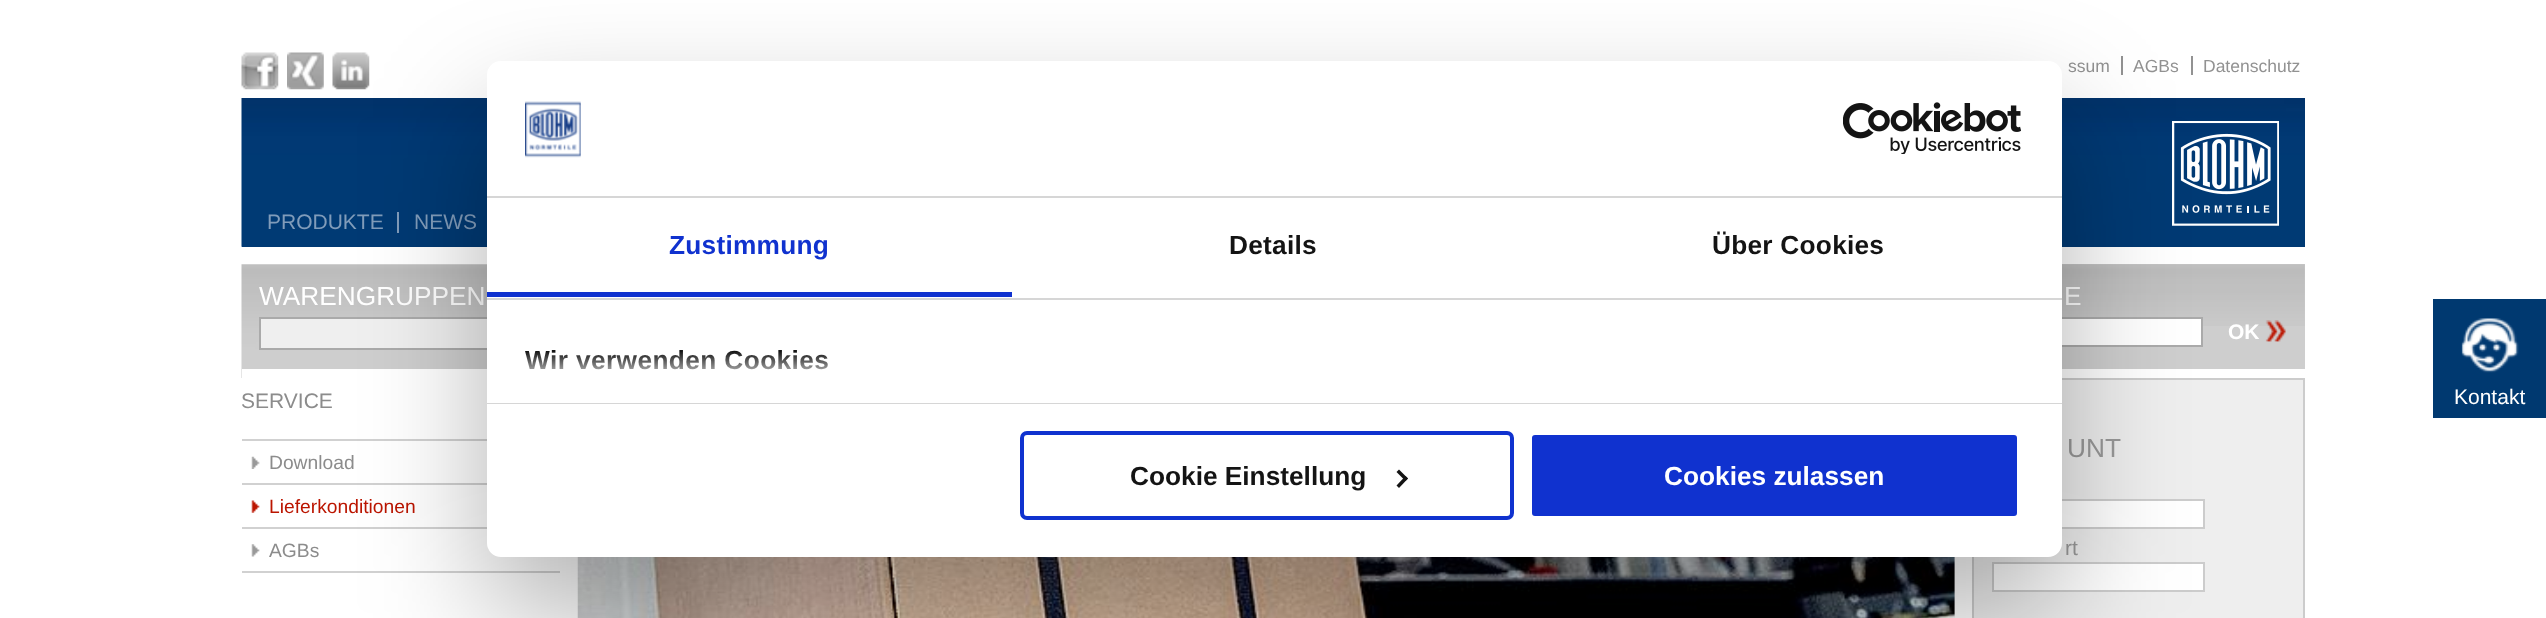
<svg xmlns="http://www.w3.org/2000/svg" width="2546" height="618">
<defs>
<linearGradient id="g1" gradientUnits="userSpaceOnUse" x1="1256" y1="403" x2="1256" y2="351"><stop offset="0" stop-color="#fff"/><stop offset="0.5" stop-color="#fff" stop-opacity="0.8"/><stop offset="1" stop-color="#fff" stop-opacity="0"/></linearGradient>
</defs>
<rect width="100%" height="100%" fill="#fff"/>
<image x="241" y="52" width="38" height="38" href="media/1.png"/>
<image x="287" y="52" width="37" height="38" href="media/2.png"/>
<image x="332" y="52" width="38" height="38" href="media/3.png"/>
<text x="2068" y="72" style="font-family:Liberation Sans;font-size:17.5px;fill:#929292">ssum</text>
<text x="2133" y="72" style="font-family:Liberation Sans;font-size:17.5px;fill:#929292">AGBs</text>
<rect x="2121" y="56" width="2" height="19" fill="#929292"/>
<text x="2203" y="72" style="font-family:Liberation Sans;font-size:17.5px;fill:#929292">Datenschutz</text>
<rect x="2191" y="56" width="2" height="19" fill="#929292"/>
<rect x="242" y="98" width="2063" height="149" fill="#003970"/>
<image x="241" y="98" width="2064" height="149" href="media/4.png"/>
<text x="267" y="229" style="font-family:Liberation Sans;font-size:21px;fill:#809cba">PRODUKTE</text>
<rect x="397" y="212" width="2" height="21" fill="#809cba"/>
<text x="414" y="229" style="font-family:Liberation Sans;font-size:21px;fill:#809cba">NEWS</text>
<image x="2172" y="121" width="107" height="105" href="media/5.png"/>
<image x="241" y="264" width="246" height="114" href="media/6.png"/>
<rect x="242" y="369" width="245" height="9" fill="#fff"/>
<text x="259" y="305" style="font-family:Liberation Sans;font-size:26.25px;fill:#fff">WARENGRUPPEN</text>
<rect x="261" y="319" width="226" height="29" fill="#efefef"/>
<rect x="260" y="318" width="282" height="31" fill="none" stroke="#aaa" stroke-width="2"/>
<text x="241" y="408" style="font-family:Liberation Sans;font-size:21px;fill:#8c8c8c">SERVICE</text>
<rect x="242" y="571" width="318" height="2" fill="#d1d1d1"/>
<rect x="242" y="439" width="245" height="2" fill="#d1d1d1"/>
<image x="251" y="456" width="9" height="13" href="media/7.png"/>
<text x="269" y="469" style="font-family:Liberation Sans;font-size:19.25px;fill:#8c8c8c">Download</text>
<rect x="242" y="483" width="245" height="2" fill="#d1d1d1"/>
<image x="251" y="500" width="9" height="13" href="media/8.png"/>
<text x="269" y="513" style="font-family:Liberation Sans;font-size:19.25px;fill:#bb1500">Lieferkonditionen</text>
<rect x="242" y="527" width="245" height="2" fill="#d1d1d1"/>
<image x="251" y="544" width="9" height="13" href="media/9.png"/>
<text x="269" y="557" style="font-family:Liberation Sans;font-size:19.25px;fill:#8c8c8c">AGBs</text>
<rect x="2062" y="264" width="243" height="105" fill="#cecece"/>
<image x="2062" y="264" width="243" height="62" href="media/10.png"/>
<text x="2064" y="305" style="font-family:Liberation Sans;font-size:26.25px;fill:#fff">E</text>
<rect x="2062" y="319" width="139" height="26" fill="#fff"/>
<rect x="1991" y="318" width="211" height="28" fill="none" stroke="#aaa" stroke-width="2"/>
<image x="2265" y="320" width="21" height="22" href="media/11.png"/>
<text x="2228" y="339" style="font-family:Liberation Sans;font-size:21px;font-weight:bold;fill:#fff">OK</text>
<rect x="1973" y="379" width="331" height="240" fill="#eee" stroke="#ccc" stroke-width="2"/>
<text x="2067" y="457" style="font-family:Liberation Sans;font-size:26.25px;fill:#999">UNT</text>
<rect x="2062" y="501" width="141" height="26" fill="#fff"/>
<rect x="1993" y="500" width="211" height="28" fill="none" stroke="#ccc" stroke-width="2"/>
<text x="2065" y="555" style="font-family:Liberation Sans;font-size:21px;fill:#999">rt</text>
<rect x="1993" y="563" width="211" height="28" fill="#fff" stroke="#ccc" stroke-width="2"/>
<rect x="1954" y="557" width="1" height="61" fill="#f0f0f0"/>
<image x="577" y="557" width="1378" height="61" href="media/12.png"/>
<rect x="487" y="117" width="1575" height="496" rx="14" fill="#0000004d" filter="blur(59.5px)"/>
<rect x="487" y="61" width="1575" height="496" rx="14" fill="#fff"/>
<rect x="487" y="196" width="1575" height="2" fill="#d6d6d6"/>
<image x="525" y="101" width="56" height="57" href="media/13.png"/>
<image x="1843" y="102" width="178" height="52" href="media/14.png"/>
<rect x="487" y="298" width="1575" height="2" fill="#d6d6d6"/>
<rect x="487" y="292" width="525" height="5" fill="#1032cf"/>
<text x="669" y="254" style="font-family:Liberation Sans;font-size:26.25px;font-weight:bold;letter-spacing:0.25px;fill:#1032cf">Zustimmung</text>
<text x="1229" y="254" style="font-family:Liberation Sans;font-size:26.25px;font-weight:bold;letter-spacing:0.25px;fill:#141414">Details</text>
<text x="1712" y="254" style="font-family:Liberation Sans;font-size:26.25px;font-weight:bold;letter-spacing:0.25px;fill:#141414">Über Cookies</text>
<rect x="487" y="403" width="1575" height="1" fill="#d6d6d6"/>
<text x="525" y="369" style="font-family:Liberation Sans;font-size:26.25px;font-weight:bold;letter-spacing:0.4px;fill:#141414">Wir verwenden Cookies</text>
<rect x="525" y="352" width="304" height="18" fill="url(#g1)"/>
<rect x="1022" y="433" width="490" height="85" rx="5" fill="none" stroke="#1032cf" stroke-width="4"/>
<text x="1130" y="485" style="font-family:Liberation Sans;font-size:26.25px;font-weight:bold;fill:#141414">Cookie Einstellung</text>
<path d="M1399 469.5l9 9l-2.5 2.5l-9-9z" fill="#141414"/>
<path d="M1405.5 476l2.5 2.5l-9 9.5l-2.5-2.5z" fill="#141414"/>
<rect x="1530" y="433" width="489" height="85" rx="5" fill="#1032cf" stroke="#fff" stroke-width="4"/>
<text x="1664" y="485" style="font-family:Liberation Sans;font-size:26.25px;font-weight:bold;fill:#fff">Cookies zulassen</text>
<rect x="2433" y="299" width="113" height="119" fill="#003970"/>
<image x="2461" y="318" width="58" height="55" href="media/15.png"/>
<text x="2454" y="404" style="font-family:Liberation Sans;font-size:21px;fill:#fff">Kontakt</text>
</svg>
